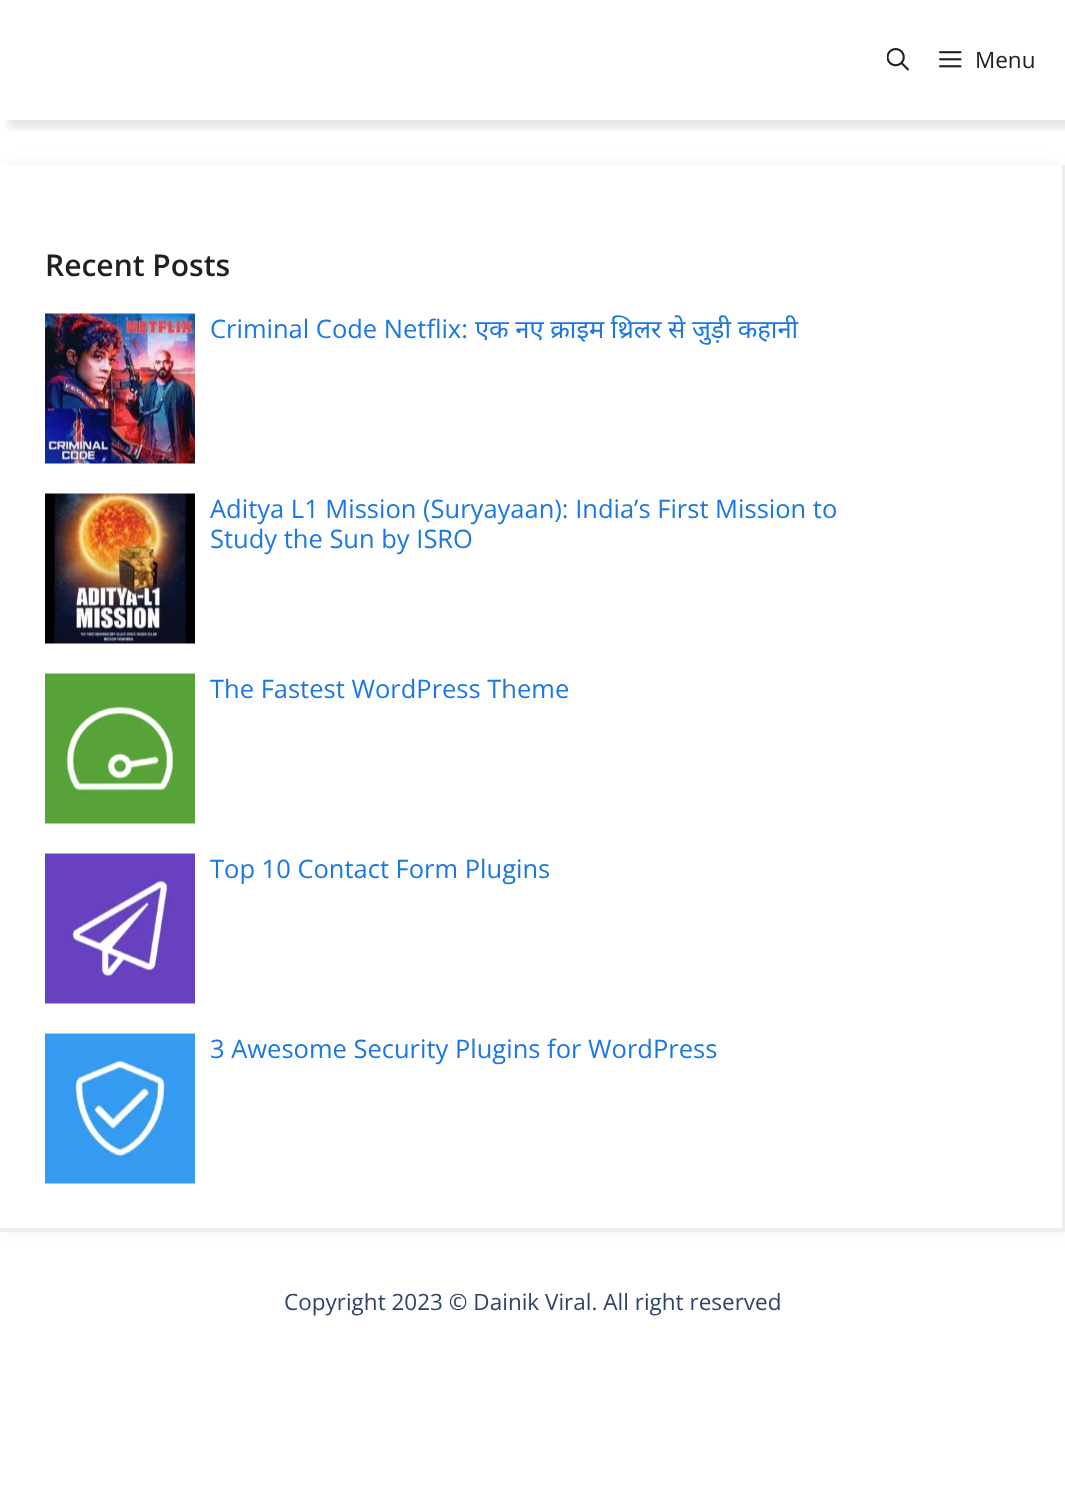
<svg xmlns="http://www.w3.org/2000/svg" width="1065" height="1511">
<defs>
<clipPath id="clip1"><rect x="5" y="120" width="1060" height="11"/></clipPath>
</defs>
<rect width="100%" height="100%" fill="#fff"/>
<g clip-path="url(#clip1)">
<rect x="8" y="8" width="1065" height="120" fill="#0000001a" filter="blur(4px)"/>
</g>
<image x="887" y="48" width="22" height="23" href="media/1.png"/>
<image x="939" y="51" width="23" height="17" href="media/2.png"/>
<text x="975" y="68" style="font-family:Open Sans;font-size:22.5px;fill:#212121">Menu</text>
<rect y="165" width="1065" height="1067" fill="#e8eaed80" filter="blur(7.5px)"/>
<rect y="165" width="1065" height="1067" fill="#fff"/>
<path d="M1065 165v1067l-3-4v-1063z" fill="#ededed"/>
<path d="M1065 1232h-1065v-4h1062z" fill="#00000012"/>
<text x="45" y="276" style="font-family:Open Sans;font-size:30px;font-weight:600;fill:#212121">Recent Posts</text>
<image x="45" y="313" width="150" height="151" href="media/3.png"/>
<text x="210" y="338" style="font-family:Open Sans;font-size:25.5px;fill:#1b78e2">Criminal Code Netflix:</text>
<text x="475" y="338" style="font-family:Noto Sans;font-size:25.5px;fill:#1b78e2">एक नए क्राइम थ्रिलर से जुड़ी कहानी</text>
<image x="45" y="493" width="150" height="151" href="media/4.png"/>
<text x="210" y="518" style="font-family:Open Sans;font-size:25.5px;fill:#1b78e2">Aditya L1 Mission (Suryayaan): India’s First Mission to</text>
<text x="210" y="548" style="font-family:Open Sans;font-size:25.5px;fill:#1b78e2">Study the Sun by ISRO</text>
<image x="45" y="673" width="150" height="151" href="media/5.png"/>
<text x="210" y="698" style="font-family:Open Sans;font-size:25.5px;fill:#1b78e2">The Fastest WordPress Theme</text>
<image x="45" y="853" width="150" height="151" href="media/6.png"/>
<text x="210" y="878" style="font-family:Open Sans;font-size:25.5px;fill:#1b78e2">Top 10 Contact Form Plugins</text>
<image x="45" y="1033" width="150" height="151" href="media/7.png"/>
<text x="210" y="1058" style="font-family:Open Sans;font-size:25.5px;fill:#1b78e2">3 Awesome Security Plugins for WordPress</text>
<text x="284" y="1310" style="font-family:Open Sans;font-size:22.5px;fill:#2f4468">Copyright 2023 © Dainik Viral. All right reserved</text>
</svg>
